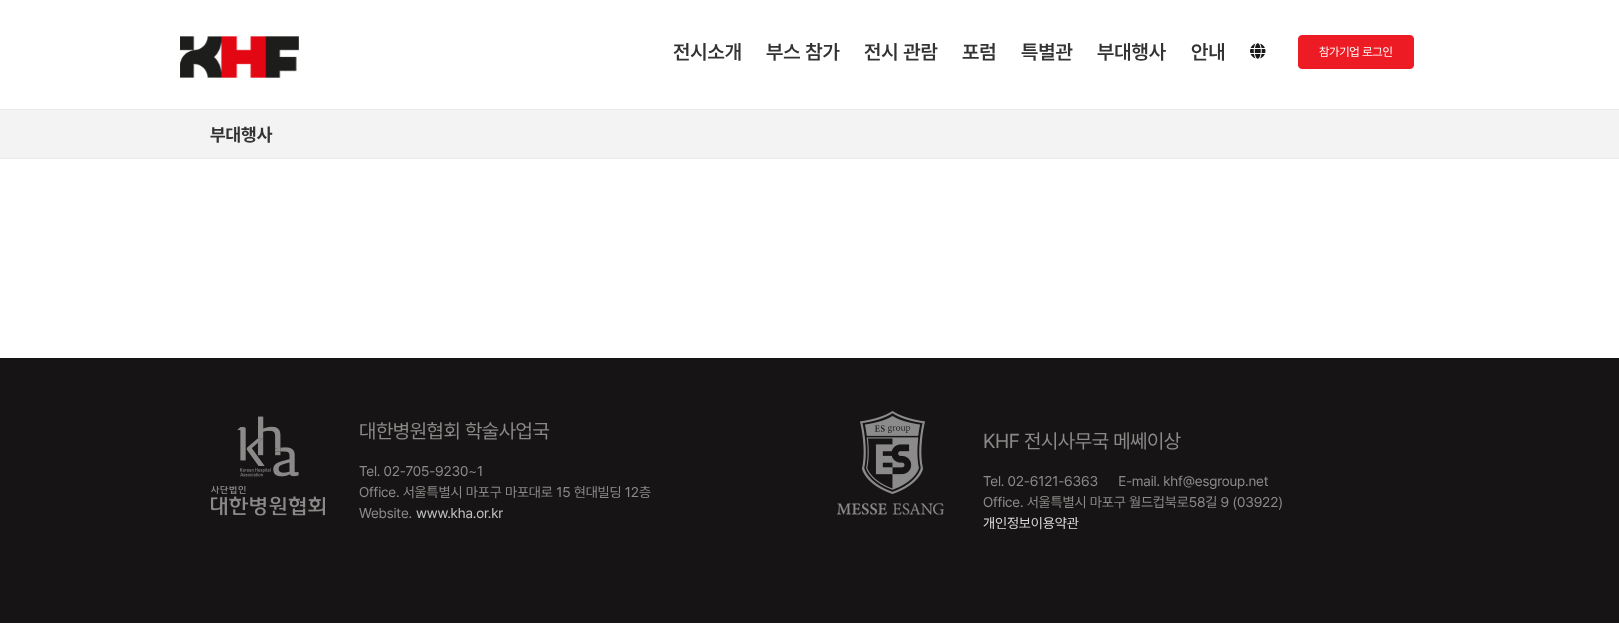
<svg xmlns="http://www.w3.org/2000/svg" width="1619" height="624">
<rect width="100%" height="100%" fill="#fff"/>
<image x="180" y="36" width="119" height="42" href="media/1.png"/>
<text x="673" y="59" style="font-family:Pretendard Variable;font-size:20px;font-weight:600;fill:#333">전시소개</text>
<text x="766" y="59" style="font-family:Pretendard Variable;font-size:20px;font-weight:600;fill:#333">부스 참가</text>
<text x="864" y="59" style="font-family:Pretendard Variable;font-size:20px;font-weight:600;fill:#333">전시 관람</text>
<text x="962" y="59" style="font-family:Pretendard Variable;font-size:20px;font-weight:600;fill:#333">포럼</text>
<text x="1021" y="59" style="font-family:Pretendard Variable;font-size:20px;font-weight:600;fill:#333">특별관</text>
<text x="1097" y="59" style="font-family:Pretendard Variable;font-size:20px;font-weight:600;fill:#333">부대행사</text>
<text x="1191" y="59" style="font-family:Pretendard Variable;font-size:20px;font-weight:600;fill:#333">안내</text>
<image x="1250" y="43" width="16" height="16" href="media/2.png"/>
<rect x="1298.5" y="35.5" width="115" height="33" rx="3.5" fill="#ed1c24" stroke="#ed1c24"/>
<text x="1319" y="56" style="font-family:Pretendard Variable;font-size:12px;letter-spacing:-0.25px;fill:#fff">참가기업 로그인</text>
<rect y="110" width="1619" height="48" fill="#f3f3f3"/>
<rect y="109" width="1619" height="1" fill="#eaeaea"/>
<rect y="158" width="1619" height="1" fill="#eaeaea"/>
<text x="210" y="141" style="font-family:Pretendard Variable;font-size:18px;font-weight:bold;fill:#333">부대행사</text>
<rect y="358" width="1619" height="265" fill="#161414"/>
<image x="211" y="416" width="114" height="100" href="media/3.png"/>
<text x="359" y="438" style="font-family:Pretendard Variable;font-size:20px;letter-spacing:-0.4px;fill:#8c8989">대한병원협회 학술사업국</text>
<text x="359" y="476" style="font-family:Pretendard Variable;font-size:14px;letter-spacing:-0.15px;fill:#8c8989">Tel. 02-705-9230~1</text>
<text x="359" y="497" style="font-family:Pretendard Variable;font-size:14px;letter-spacing:-0.15px;fill:#8c8989">Office. 서울특별시 마포구 마포대로 15 현대빌딩 12층</text>
<text x="359" y="518" style="font-family:Pretendard Variable;font-size:14px;letter-spacing:-0.15px;fill:#8c8989">Website.</text>
<text x="416" y="518" style="font-family:Pretendard Variable;font-size:14px;letter-spacing:-0.15px;fill:#c0c1c1">www.kha.or.kr</text>
<image x="837" y="411" width="107" height="104" href="media/4.png"/>
<text x="983" y="448" style="font-family:Pretendard Variable;font-size:20px;letter-spacing:-0.4px;fill:#8c8989">KHF 전시사무국 메쎄이상</text>
<text x="983" y="486" style="font-family:Pretendard Variable;font-size:14px;letter-spacing:-0.15px;fill:#8c8989" xml:space="preserve">Tel. 02-6121-6363      E-mail. khf@esgroup.net</text>
<text x="983" y="507" style="font-family:Pretendard Variable;font-size:14px;letter-spacing:-0.15px;fill:#8c8989">Office. 서울특별시 마포구 월드컵북로58길 9 (03922)</text>
<text x="983" y="528" style="font-family:Pretendard Variable;font-size:14px;letter-spacing:-0.15px;fill:#dbdbdb">개인정보이용약관</text>
</svg>
